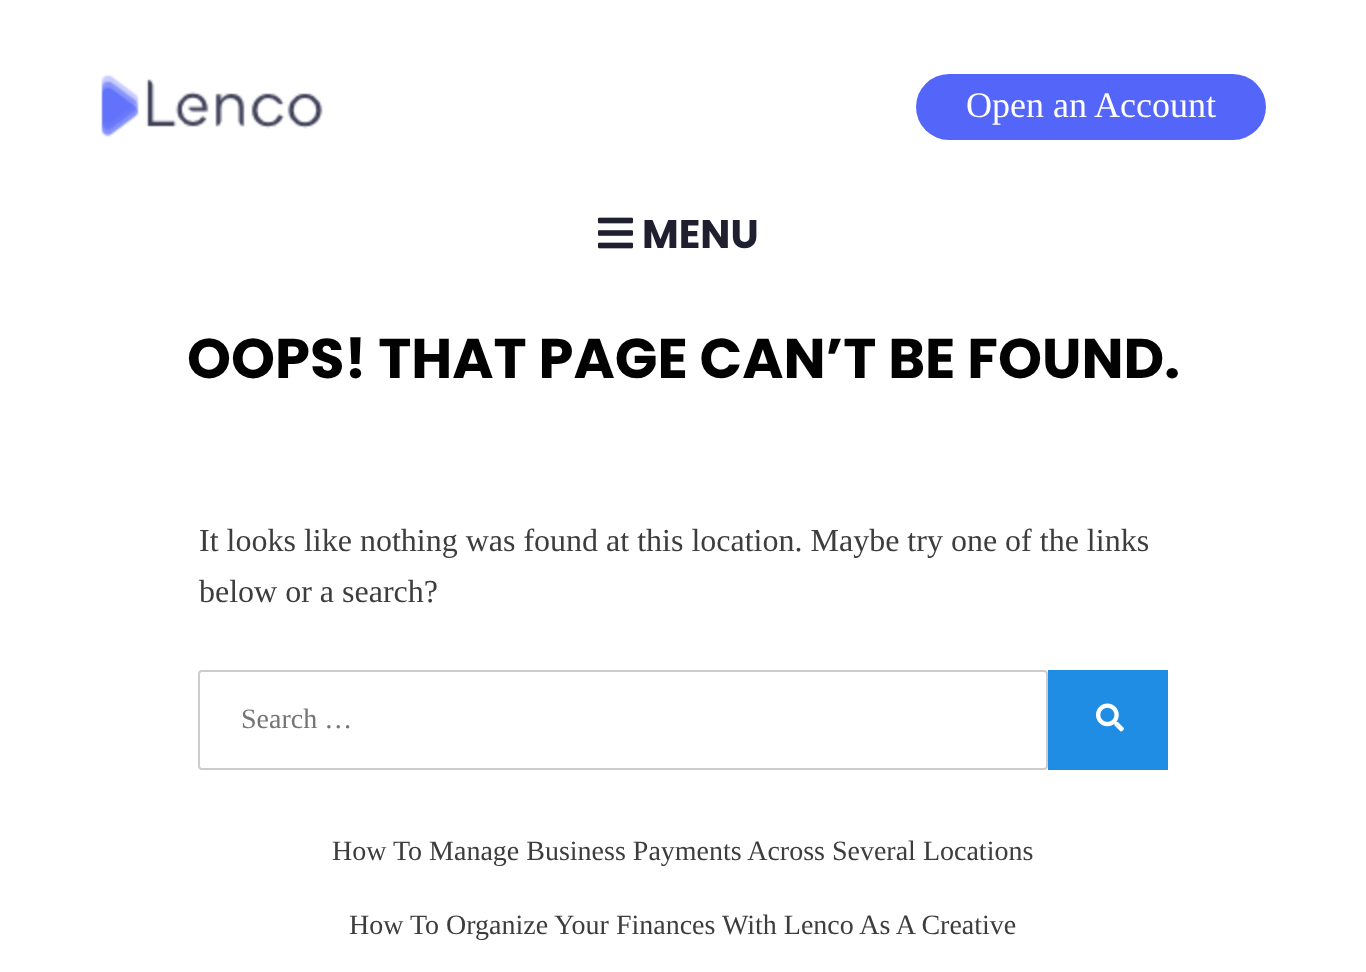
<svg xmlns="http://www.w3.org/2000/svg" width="1366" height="972">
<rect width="100%" height="100%" fill="#fff"/>
<image x="101" y="74" width="222" height="63" href="media/1.png"/>
<rect x="916" y="74" width="350" height="66" rx="33" fill="#5466f9"/>
<text x="966" y="117" style="font-family:Liberation Serif;font-size:36px;fill:#fff">Open an Account</text>
<image x="598" y="217" width="35" height="32" href="media/2.png"/>
<text x="642" y="248" style="font-family:Poppins;font-size:40px;font-weight:bold;fill:#1f1f30">MENU</text>
<text x="187" y="378" style="font-family:Poppins;font-size:56px;font-weight:bold;fill:#020202">OOPS! THAT PAGE CAN’T BE FOUND.</text>
<text x="199" y="551" style="font-family:Liberation Serif;font-size:32px;fill:#3d3d3d">It looks like nothing was found at this location. Maybe try one of the links</text>
<text x="199" y="602" style="font-family:Liberation Serif;font-size:32px;fill:#3d3d3d">below or a search?</text>
<rect x="199" y="671" width="848" height="98" rx="3" fill="none" stroke="#ccc" stroke-width="2"/>
<text x="241" y="728" style="font-family:Liberation Serif;font-size:28px;fill:#757575">Search …</text>
<rect x="1048" y="670" width="120" height="100" fill="#208de5"/>
<image x="1096" y="703" width="28" height="29" href="media/3.png"/>
<text x="332" y="860" style="font-family:Liberation Serif;font-size:28px;fill:#3d3d3d">How To Manage Business Payments Across Several Locations</text>
<text x="349" y="934" style="font-family:Liberation Serif;font-size:28px;fill:#3d3d3d">How To Organize Your Finances With Lenco As A Creative</text>
</svg>
